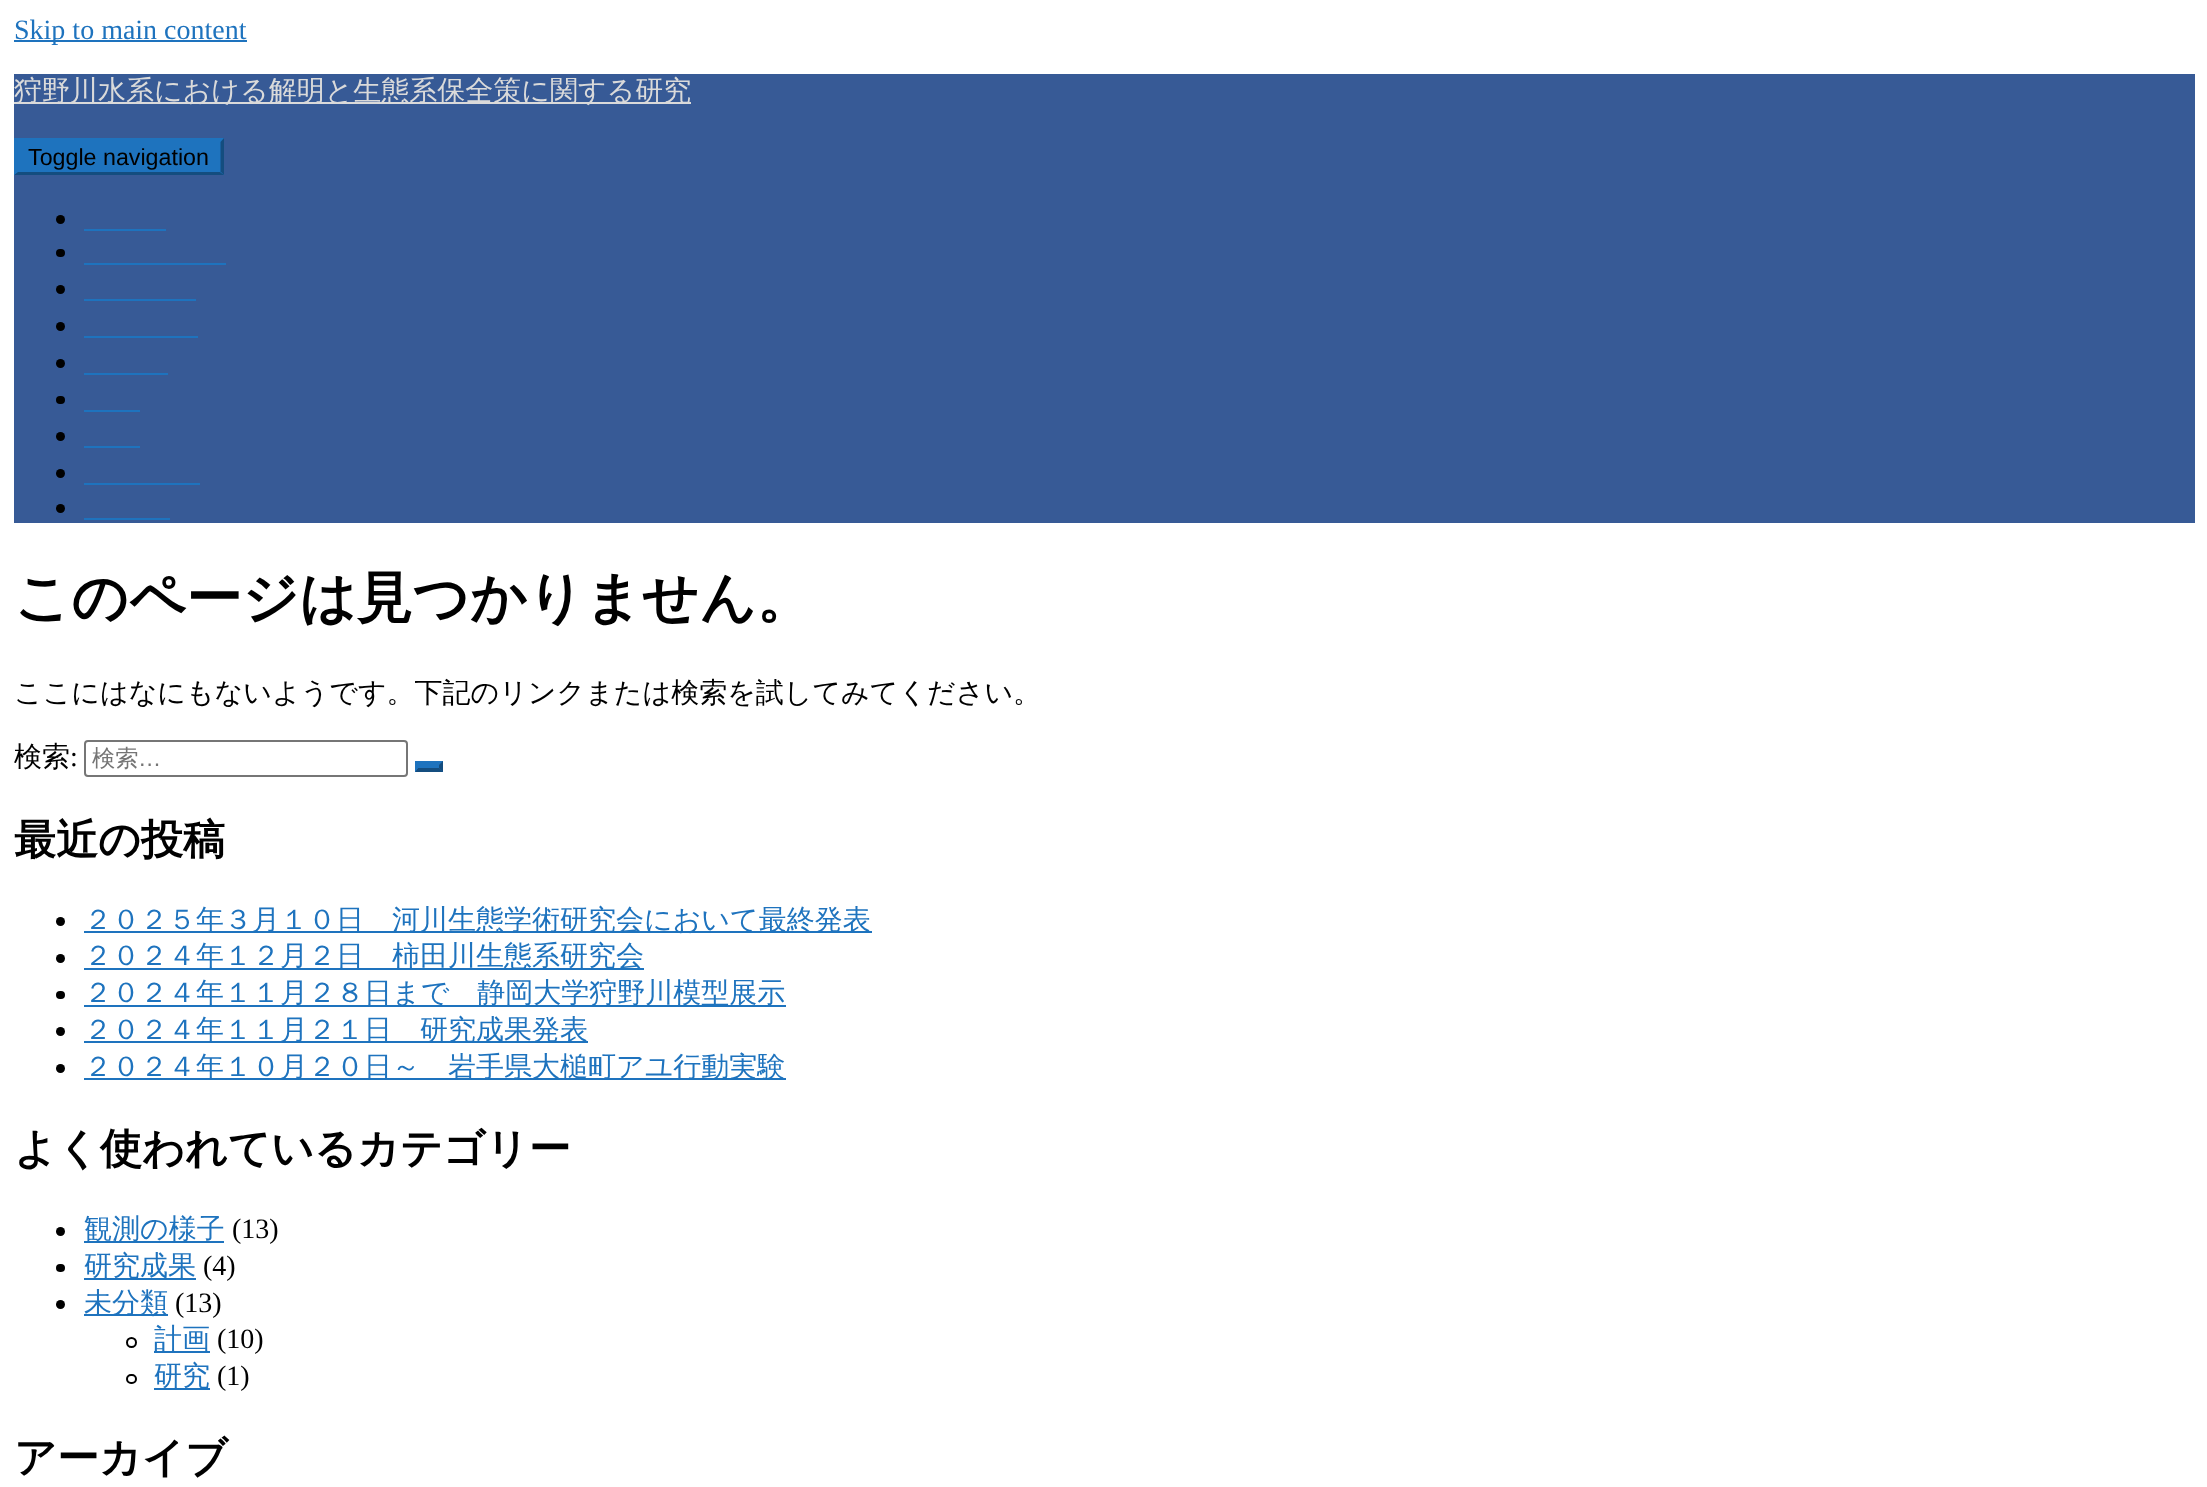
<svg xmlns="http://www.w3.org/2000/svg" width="2207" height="1487">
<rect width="100%" height="100%" fill="#fff"/>
<rect x="14" y="40" width="233" height="2" fill="#1e73be"/>
<text x="14" y="39" style="font-family:Liberation Serif;font-size:28px;fill:#1e73be">Skip to main content</text>
<rect x="14" y="74" width="2181" height="449" fill="#375a96"/>
<rect x="14" y="102" width="677" height="2" fill="#dadada"/>
<text x="14" y="100" style="font-family:WenQuanYi Zen Hei;font-size:28px;font-weight:500;fill:#dadada">狩野川水系における解明と生態系保全策に関する研究</text>
<rect x="14" y="138" width="210" height="37" fill="#1e73be"/>
<path d="M224 138v37l-3.5-3.5v-29.5z" fill="#144d7f"/>
<path d="M224 175h-210l4-3h202z" fill="#144d7f"/>
<path d="M14 175v-37l3.5 4v29.5z" fill="#1e73be"/>
<text x="28" y="165" style="font-family:Liberation Sans;font-size:23.25px;fill:#000">Toggle navigation</text>
<circle cx="60.5" cy="219.5" r="4.5" fill="#000"/>
<rect x="84" y="229" width="82" height="2" fill="#1e73be"/>
<rect x="56" y="249" width="9" height="8" rx="4" fill="#000"/>
<rect x="84" y="263" width="142" height="2" fill="#1e73be"/>
<circle cx="60.5" cy="289.5" r="4.5" fill="#000"/>
<rect x="84" y="299" width="112" height="2" fill="#1e73be"/>
<circle cx="60.5" cy="326.5" r="4.5" fill="#000"/>
<rect x="84" y="336" width="114" height="2" fill="#1e73be"/>
<circle cx="60.5" cy="363.5" r="4.5" fill="#000"/>
<rect x="84" y="373" width="84" height="2" fill="#1e73be"/>
<rect x="56" y="396" width="9" height="8" rx="4" fill="#000"/>
<rect x="84" y="410" width="56" height="2" fill="#1e73be"/>
<circle cx="60.5" cy="436.5" r="4.5" fill="#000"/>
<rect x="84" y="446" width="56" height="2" fill="#1e73be"/>
<circle cx="60.5" cy="473.5" r="4.5" fill="#000"/>
<rect x="84" y="483" width="116" height="2" fill="#1e73be"/>
<circle cx="60.5" cy="508.5" r="4.5" fill="#000"/>
<rect x="84" y="518" width="86" height="2" fill="#1e73be"/>
<text x="14" y="617" style="font-family:WenQuanYi Zen Hei;font-size:56px;font-weight:bold;fill:#000">このページは見つかりません。</text>
<text x="14" y="702" style="font-family:WenQuanYi Zen Hei;font-size:28px;font-weight:500;fill:#000">ここにはなにもないようです。下記のリンクまたは検索を試してみてください。</text>
<text x="14" y="766" style="font-family:WenQuanYi Zen Hei;font-size:28px;font-weight:500;fill:#000">検索</text>
<text x="70" y="766" style="font-family:Liberation Serif;font-size:28px;fill:#000">:</text>
<rect x="85" y="741" width="322" height="35" rx="3" fill="none" stroke="#767676" stroke-width="2"/>
<text x="92" y="766" style="font-family:WenQuanYi Zen Hei;font-size:23.25px;font-weight:500;fill:#757575">検索</text>
<text x="138" y="766" style="font-family:Liberation Sans;font-size:23.25px;fill:#757575">…</text>
<rect x="415" y="761" width="28" height="11" fill="#1e73be"/>
<path d="M443 761v11l-4-4v-3z" fill="#144d7f"/>
<path d="M443 772h-28l3-4h21z" fill="#144d7f"/>
<path d="M415 772v-11l3 4v3z" fill="#1e73be"/>
<text x="14" y="854" style="font-family:WenQuanYi Zen Hei;font-size:42px;font-weight:bold;fill:#000">最近の投稿</text>
<circle cx="60.5" cy="921.5" r="4.5" fill="#000"/>
<rect x="84" y="931" width="788" height="2" fill="#1e73be"/>
<text x="84" y="929" style="font-family:WenQuanYi Zen Hei;font-size:28px;font-weight:500;fill:#1e73be">２０２５年３月１０日　河川生態学術研究会において最終発表</text>
<circle cx="60.5" cy="958.5" r="4.5" fill="#000"/>
<rect x="84" y="968" width="560" height="2" fill="#1e73be"/>
<text x="84" y="965" style="font-family:WenQuanYi Zen Hei;font-size:28px;font-weight:500;fill:#1e73be">２０２４年１２月２日　柿田川生態系研究会</text>
<rect x="56" y="991" width="9" height="8" rx="4" fill="#000"/>
<rect x="84" y="1005" width="702" height="2" fill="#1e73be"/>
<text x="84" y="1002" style="font-family:WenQuanYi Zen Hei;font-size:28px;font-weight:500;fill:#1e73be">２０２４年１１月２８日まで　静岡大学狩野川模型展示</text>
<circle cx="60.5" cy="1031.5" r="4.5" fill="#000"/>
<rect x="84" y="1041" width="504" height="2" fill="#1e73be"/>
<text x="84" y="1039" style="font-family:WenQuanYi Zen Hei;font-size:28px;font-weight:500;fill:#1e73be">２０２４年１１月２１日　研究成果発表</text>
<circle cx="60.5" cy="1068.5" r="4.5" fill="#000"/>
<rect x="84" y="1078" width="702" height="2" fill="#1e73be"/>
<text x="84" y="1076" style="font-family:WenQuanYi Zen Hei;font-size:28px;font-weight:500;fill:#1e73be">２０２４年１０月２０日～　岩手県大槌町アユ行動実験</text>
<text x="14" y="1163" style="font-family:WenQuanYi Zen Hei;font-size:42px;font-weight:bold;fill:#000">よく使われているカテゴリー</text>
<circle cx="60.5" cy="1231.5" r="4.5" fill="#000"/>
<rect x="84" y="1241" width="140" height="2" fill="#1e73be"/>
<text x="84" y="1238" style="font-family:WenQuanYi Zen Hei;font-size:28px;font-weight:500;fill:#1e73be">観測の様子</text>
<text x="232" y="1238" style="font-family:Liberation Serif;font-size:28px;fill:#000">(13)</text>
<rect x="56" y="1264" width="9" height="8" rx="4" fill="#000"/>
<rect x="84" y="1278" width="112" height="2" fill="#1e73be"/>
<text x="84" y="1275" style="font-family:WenQuanYi Zen Hei;font-size:28px;font-weight:500;fill:#1e73be">研究成果</text>
<text x="203" y="1275" style="font-family:Liberation Serif;font-size:28px;fill:#000">(4)</text>
<circle cx="60.5" cy="1304.5" r="4.5" fill="#000"/>
<rect x="84" y="1314" width="84" height="2" fill="#1e73be"/>
<text x="84" y="1312" style="font-family:WenQuanYi Zen Hei;font-size:28px;font-weight:500;fill:#1e73be">未分類</text>
<text x="175" y="1312" style="font-family:Liberation Serif;font-size:28px;fill:#000">(13)</text>
<circle cx="131.5" cy="1342.5" r="4.5" fill="none" stroke="#000" stroke-width="2"/>
<rect x="154" y="1351" width="56" height="2" fill="#1e73be"/>
<text x="154" y="1348" style="font-family:WenQuanYi Zen Hei;font-size:28px;font-weight:500;fill:#1e73be">計画</text>
<text x="217" y="1348" style="font-family:Liberation Serif;font-size:28px;fill:#000">(10)</text>
<rect x="127" y="1375" width="9" height="8" rx="4" fill="none" stroke="#000" stroke-width="2"/>
<rect x="154" y="1388" width="56" height="2" fill="#1e73be"/>
<text x="154" y="1385" style="font-family:WenQuanYi Zen Hei;font-size:28px;font-weight:500;fill:#1e73be">研究</text>
<text x="217" y="1385" style="font-family:Liberation Serif;font-size:28px;fill:#000">(1)</text>
<text x="14" y="1472" style="font-family:WenQuanYi Zen Hei;font-size:42px;font-weight:bold;fill:#000">アーカイブ</text>
</svg>
